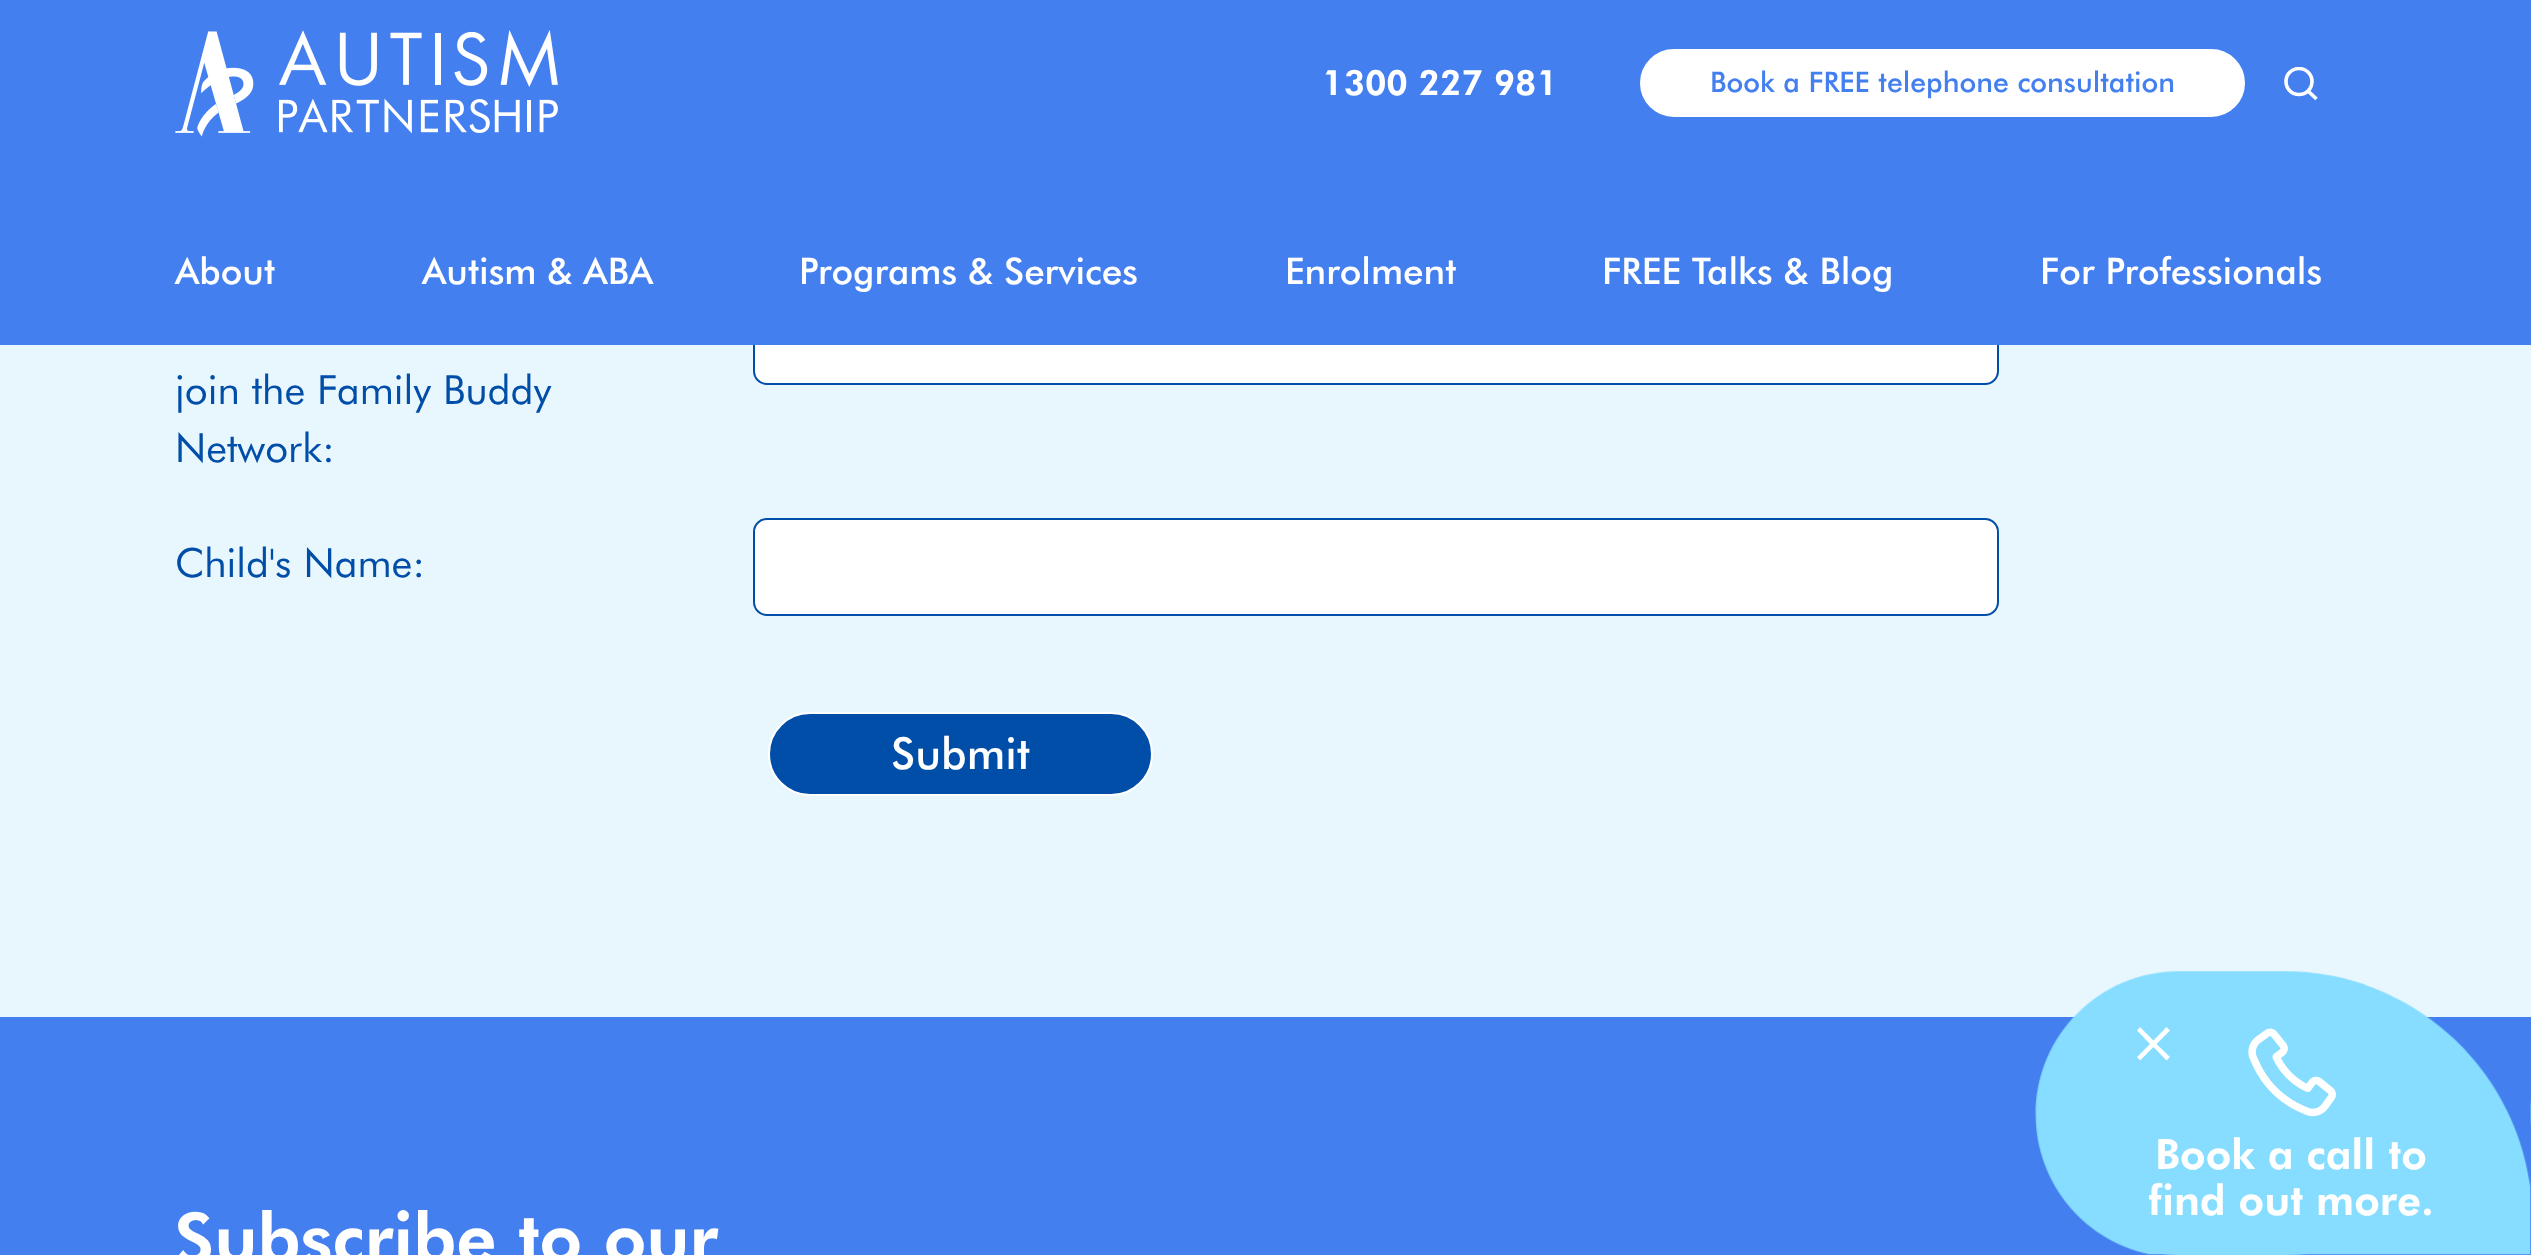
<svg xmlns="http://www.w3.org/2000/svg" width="2531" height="1255">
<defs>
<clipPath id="clip1"><rect x="2284" y="67" width="35" height="35"/></clipPath>
</defs>
<rect width="100%" height="100%" fill="#e8f6fe"/>
<rect x="754" y="288" width="1244" height="96" rx="13" fill="#fff" stroke="#004ea8" stroke-width="2"/>
<rect width="2531" height="345" fill="#447ff0"/>
<image x="175" y="30" width="383" height="107" href="media/1.png"/>
<text x="1322" y="95" style="font-family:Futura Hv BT;font-size:35px;font-weight:900;fill:#fff">1300 227 981</text>
<rect x="1642" y="51" width="601" height="64" rx="32" fill="#fff" stroke="#fff" stroke-width="4"/>
<text x="1710" y="92" style="font-family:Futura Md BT;font-size:28.5px;font-weight:500;fill:#447ff0">Book a FREE telephone consultation</text>
<g clip-path="url(#clip1)">
<circle cx="2299" cy="81.5" r="13" fill="none" stroke="#fff" stroke-width="3.6"/>
</g>
<path d="M2316.5 99l-8.5-8" fill="none" stroke="#fff" stroke-width="3.6"/>
<text x="175" y="284" style="font-family:Futura Md BT;font-size:36.75px;font-weight:500;fill:#fff">About</text>
<text x="422" y="284" style="font-family:Futura Md BT;font-size:36.75px;font-weight:500;fill:#fff">Autism &amp; ABA</text>
<text x="799" y="284" style="font-family:Futura Md BT;font-size:36.75px;font-weight:500;fill:#fff">Programs &amp; Services</text>
<text x="1285" y="284" style="font-family:Futura Md BT;font-size:36.75px;font-weight:500;fill:#fff">Enrolment</text>
<text x="1602" y="284" style="font-family:Futura Md BT;font-size:36.75px;font-weight:500;fill:#fff">FREE Talks &amp; Blog</text>
<text x="2040" y="284" style="font-family:Futura Md BT;font-size:36.75px;font-weight:500;fill:#fff">For Professionals</text>
<text x="175" y="404" style="font-family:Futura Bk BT;font-size:40.25px;fill:#004ea8">join the Family Buddy</text>
<text x="175" y="462" style="font-family:Futura Bk BT;font-size:40.25px;fill:#004ea8">Network:</text>
<text x="175" y="577" style="font-family:Futura Bk BT;font-size:40.25px;fill:#004ea8">Child's Name:</text>
<rect x="754" y="519" width="1244" height="96" rx="13" fill="#fff" stroke="#004ea8" stroke-width="2"/>
<rect x="769" y="713" width="383" height="82" rx="41" fill="#004ea8" stroke="#fff" stroke-width="2"/>
<text x="891" y="769" style="font-family:Futura Md BT;font-size:44px;font-weight:500;fill:#fff">Submit</text>
<rect y="1017" width="2531" height="238" fill="#447ff0"/>
<text x="175" y="1263" style="font-family:Futura Hv BT;font-size:70px;font-weight:900;fill:#fff">Subscribe to our</text>
<image x="2035" y="971" width="496" height="284" href="media/2.png"/>
<path d="M2170 1030.5l-3.5-3.5l-13 13.5l-13.5-13.5l-3 3.5l13 13.5l-13 13l3 3.5l13.5-13.5l13 13.5l3.5-3.5l-13.5-13z" fill="#fff"/>
<image x="2248" y="1028" width="88" height="89" href="media/3.png"/>
<text x="2155" y="1169" style="font-family:Futura Hv BT;font-size:42px;font-weight:900;fill:#fff">Book a call to</text>
<text x="2148" y="1215" style="font-family:Futura Hv BT;font-size:42px;font-weight:900;fill:#fff">find out more.</text>
</svg>
